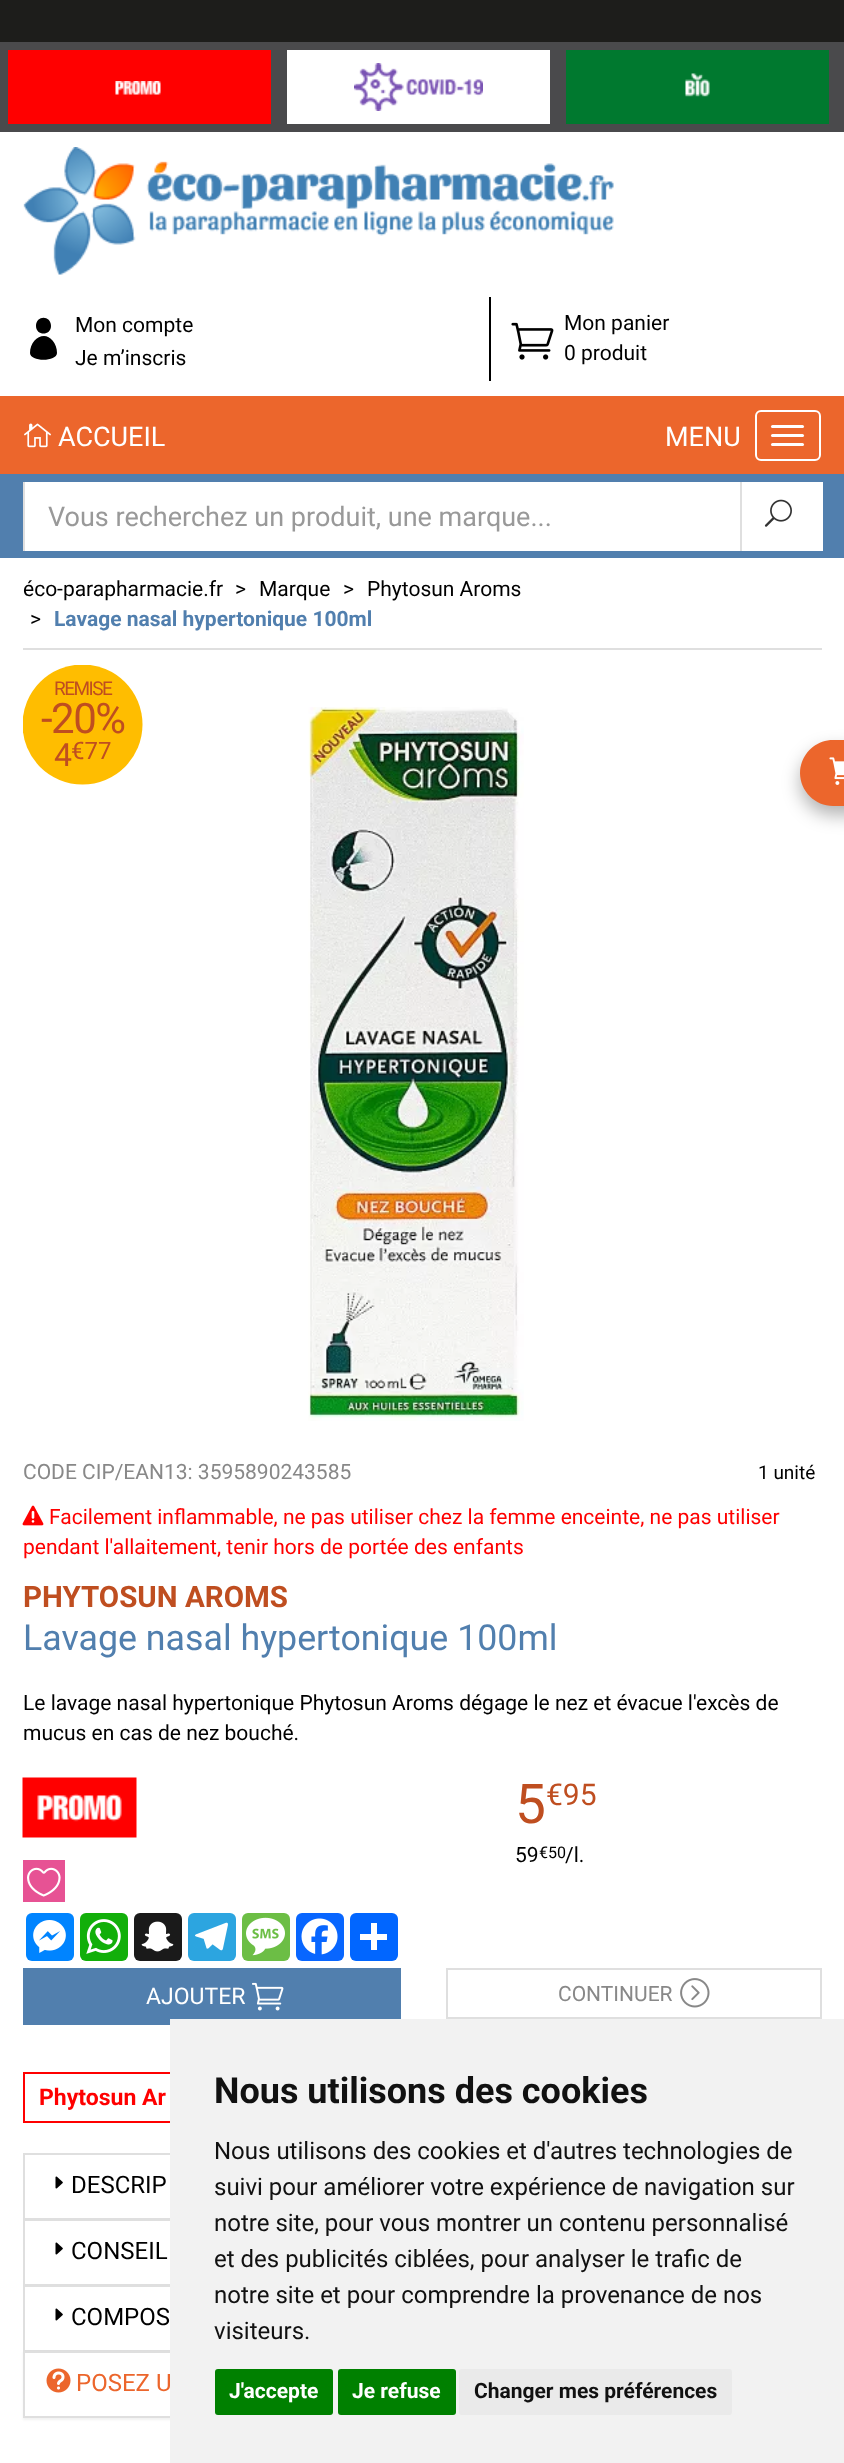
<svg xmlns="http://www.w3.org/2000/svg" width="844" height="2463">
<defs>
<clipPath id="clip1"><rect x="23" y="665" width="120" height="120"/></clipPath>
</defs>
<rect width="100%" height="100%" fill="#fff"/>
<rect width="844" height="42" fill="#1d1d1b"/>
<rect x="837" y="42" width="7" height="90" fill="#4a4a4c"/>
<rect x="8" y="50" width="263" height="74" fill="#f00"/>
<image x="115" y="81" width="46" height="14" href="media/1.png"/>
<rect x="4" y="46" width="271" height="82" fill="none" stroke="#4a4a4c" stroke-width="8"/>
<image x="354" y="63" width="129" height="48" href="media/2.png"/>
<rect x="283" y="46" width="271" height="82" fill="none" stroke="#4a4a4c" stroke-width="8"/>
<rect x="566" y="50" width="263" height="74" fill="#00792f"/>
<image x="685" y="73" width="25" height="24" href="media/3.png"/>
<rect x="562" y="46" width="271" height="82" fill="none" stroke="#4a4a4c" stroke-width="8"/>
<image x="23" y="147" width="591" height="128" href="media/4.png"/>
<path d="M51 326c0 10-15 10-15 0c0-11 15-11 15 0zm-7 10c6 0 13 7 13 17c0 9-27 9-27 0c0-10 7-17 14-17z" fill="#000"/>
<text x="75" y="332" style="font-family:Roboto;font-size:21px;fill:#000">Mon compte</text>
<text x="75" y="365" style="font-family:Roboto;font-size:21px;fill:#000">Je m’inscris</text>
<rect x="489" y="297" width="2" height="84" fill="#000"/>
<image x="511" y="322" width="43" height="38" href="media/5.png"/>
<text x="564" y="330" style="font-family:Roboto;font-size:21px;fill:#000">Mon panier</text>
<text x="564" y="360" style="font-family:Roboto;font-size:21px;fill:#000">0 produit</text>
<rect y="396" width="844" height="78" fill="#ec662c"/>
<image x="24" y="423" width="27" height="25" href="media/6.png"/>
<text x="58" y="446" style="font-family:Roboto;font-size:27px;fill:#fff">ACCUEIL</text>
<rect x="756" y="411" width="64" height="49" rx="5" fill="none" stroke="#fff" stroke-width="2"/>
<text x="665" y="446" style="font-family:Roboto;font-size:27px;fill:#fff">MENU</text>
<rect x="771" y="425" width="33" height="3" rx="1.5" fill="#fff"/>
<rect x="771" y="434" width="33" height="3" rx="1.5" fill="#fff"/>
<rect x="771" y="443" width="33" height="3" rx="1.5" fill="#fff"/>
<rect y="474" width="844" height="84" fill="#517fae"/>
<rect x="25" y="482" width="715" height="67" fill="#fff"/>
<rect x="23" y="549" width="718" height="2" fill="#fff"/>
<rect x="23" y="482" width="2" height="69" fill="#dfdfdf"/>
<text x="48" y="526" style="font-family:Roboto;font-size:27px;fill:#999">Vous recherchez un produit, une marque...</text>
<rect x="742" y="482" width="81" height="69" fill="#fff"/>
<rect x="740" y="482" width="2" height="69" fill="#dfdfdf"/>
<image x="764" y="499" width="28" height="28" href="media/7.png"/>
<rect x="23" y="648" width="799" height="2" fill="#dfdfdf"/>
<text x="23" y="596" style="font-family:Roboto;font-size:21px;fill:#000">éco-parapharmacie.fr</text>
<text x="235" y="596" style="font-family:Roboto;font-size:21px;fill:#000">&gt;</text>
<text x="259" y="596" style="font-family:Roboto;font-size:21px;fill:#000">Marque</text>
<text x="343" y="596" style="font-family:Roboto;font-size:21px;fill:#000">&gt;</text>
<text x="367" y="596" style="font-family:Roboto;font-size:21px;fill:#000">Phytosun Aroms</text>
<text x="30" y="626" style="font-family:Roboto;font-size:21px;fill:#000">&gt;</text>
<text x="54" y="626" style="font-family:Roboto;font-size:21px;font-weight:bold;fill:#517fae">Lavage nasal hypertonique 100ml</text>
<g clip-path="url(#clip1)">
<circle cx="82.5" cy="724.5" r="60" fill="#ffbd00"/>
</g>
<text x="54" y="695" style="font-family:Roboto;font-size:19px;letter-spacing:-1.5px;fill:#bf4e20">REMISE</text>
<text x="41" y="733" style="font-family:Roboto;font-size:42px;letter-spacing:-1.5px;fill:#bf4e20">-20%</text>
<text x="54" y="766" style="font-family:Roboto;font-size:32px;fill:#bf4e20">4</text>
<text x="71" y="759" style="font-family:Roboto;font-size:24px;fill:#bf4e20">€77</text>
<image x="308" y="707" width="216" height="714" href="media/8.png"/>
<text x="23" y="1479" style="font-family:Roboto;font-size:21px;fill:#888">CODE CIP/EAN13: 3595890243585</text>
<text x="758" y="1479" style="font-family:Roboto;font-size:19px;fill:#000">1 unité</text>
<image x="22" y="1505" width="22" height="21" href="media/9.png"/>
<text x="49" y="1524" style="font-family:Roboto;font-size:21px;fill:#f00">Facilement inflammable, ne pas utiliser chez la femme enceinte, ne pas utiliser</text>
<text x="23" y="1554" style="font-family:Roboto;font-size:21px;fill:#f00">pendant l'allaitement, tenir hors de portée des enfants</text>
<text x="23" y="1607" style="font-family:Roboto;font-size:29.5px;font-weight:bold;fill:#bf4e20">PHYTOSUN AROMS</text>
<text x="23" y="1650" style="font-family:Roboto;font-size:35.75px;fill:#517fae">Lavage nasal hypertonique 100ml</text>
<text x="23" y="1710" style="font-family:Roboto;font-size:21px;fill:#000">Le lavage nasal hypertonique Phytosun Aroms dégage le nez et évacue l'excès de</text>
<text x="23" y="1740" style="font-family:Roboto;font-size:21px;fill:#000">mucus en cas de nez bouché.</text>
<image x="22" y="1777" width="115" height="61" href="media/10.png"/>
<rect x="23" y="1860" width="42" height="42" fill="#e75294"/>
<image x="27" y="1867" width="34" height="30" href="media/11.png"/>
<rect x="26" y="1913" width="48" height="48" rx="6" fill="#0084ff"/>
<image x="33" y="1920" width="33" height="33" href="media/12.png"/>
<rect x="80" y="1913" width="48" height="48" rx="6" fill="#12af0a"/>
<image x="86" y="1919" width="35" height="35" href="media/13.png"/>
<rect x="134" y="1913" width="48" height="48" rx="6" fill="#1a1a1a"/>
<image x="141" y="1921" width="33" height="31" href="media/14.png"/>
<rect x="188" y="1913" width="48" height="48" rx="6" fill="#2ca5e0"/>
<image x="195" y="1922" width="33" height="29" href="media/15.png"/>
<rect x="242" y="1913" width="48" height="48" rx="6" fill="#6cbe45"/>
<image x="246" y="1917" width="39" height="39" href="media/16.png"/>
<rect x="296" y="1913" width="48" height="48" rx="6" fill="#0866ff"/>
<image x="301" y="1918" width="37" height="37" href="media/17.png"/>
<rect x="350" y="1913" width="48" height="48" rx="6" fill="#0166ff"/>
<rect x="371" y="1923" width="6" height="27" fill="#fff"/>
<rect x="360" y="1934" width="27" height="6" fill="#fff"/>
<text x="515" y="1823" style="font-family:Roboto;font-size:55px;fill:#bf4e20">5</text>
<text x="546" y="1805" style="font-family:Roboto;font-size:30px;fill:#bf4e20">€95</text>
<text x="515" y="1862" style="font-family:Roboto;font-size:21px;fill:#000">59</text>
<text x="539" y="1858" style="font-family:Roboto;font-size:16px;fill:#000">€50</text>
<text x="565" y="1862" style="font-family:Roboto;font-size:21px;fill:#000">/l.</text>
<rect x="23" y="1968" width="378" height="57" fill="#517fae"/>
<text x="146" y="2004" style="font-family:Roboto;font-size:23px;fill:#fff">AJOUTER</text>
<image x="252" y="1982" width="32" height="29" href="media/18.png"/>
<rect x="447" y="1969" width="374" height="49" fill="none" stroke="#dfdfdf" stroke-width="2"/>
<text x="558" y="2001" style="font-family:Roboto;font-size:21px;fill:#888">CONTINUER</text>
<image x="680" y="1978" width="30" height="30" href="media/19.png"/>
<rect x="24" y="2073" width="797" height="49" fill="none" stroke="#f00" stroke-width="2"/>
<text x="39" y="2105" style="font-family:Roboto;font-size:23px;font-weight:bold;fill:#f00">Phytosun Ar</text>
<rect x="24" y="2154" width="797" height="65" fill="none" stroke="#dfdfdf" stroke-width="2"/>
<image x="55" y="2176" width="8" height="13" href="media/20.png"/>
<text x="71" y="2193" style="font-family:Roboto;font-size:24px;fill:#000">DESCRIP</text>
<rect x="24" y="2220" width="797" height="65" fill="none" stroke="#dfdfdf" stroke-width="2"/>
<image x="55" y="2242" width="8" height="13" href="media/20.png"/>
<text x="71" y="2259" style="font-family:Roboto;font-size:24px;fill:#000">CONSEIL</text>
<rect x="24" y="2286" width="797" height="65" fill="none" stroke="#dfdfdf" stroke-width="2"/>
<image x="55" y="2308" width="8" height="13" href="media/20.png"/>
<text x="71" y="2325" style="font-family:Roboto;font-size:24px;fill:#000">COMPOS</text>
<rect x="23" y="2352" width="799" height="68" fill="#0000000d" filter="blur(1px)"/>
<rect x="25" y="2353" width="145" height="63" fill="#fff"/>
<rect x="24" y="2352" width="797" height="65" fill="none" stroke="#dfdfdf" stroke-width="2"/>
<image x="46" y="2368" width="25" height="25" href="media/21.png"/>
<text x="76" y="2391" style="font-family:Roboto;font-size:24px;fill:#ec662c">POSEZ U</text>
<rect x="800" y="749" width="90" height="66" rx="33" fill="#0000004d" filter="blur(9px)"/>
<path d="M833 740h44v66h-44c-18 0-33-15-33-33c0-18 15-33 33-33z" fill="#ec662c"/>
<image x="829" y="757" width="15" height="28" href="media/22.png"/>
<rect x="170" y="2019" width="674" height="444" fill="#f2f2f2"/>
<text x="214" y="2103" style="font-family:Roboto;font-size:36px;font-weight:bold;fill:#111">Nous utilisons des cookies</text>
<text x="214" y="2159" style="font-family:Roboto;font-size:24px;fill:#111">Nous utilisons des cookies et d'autres technologies de</text>
<text x="214" y="2195" style="font-family:Roboto;font-size:24px;fill:#111">suivi pour améliorer votre expérience de navigation sur</text>
<text x="214" y="2231" style="font-family:Roboto;font-size:24px;fill:#111">notre site, pour vous montrer un contenu personnalisé</text>
<text x="214" y="2267" style="font-family:Roboto;font-size:24px;fill:#111">et des publicités ciblées, pour analyser le trafic de</text>
<text x="214" y="2303" style="font-family:Roboto;font-size:24px;fill:#111">notre site et pour comprendre la provenance de nos</text>
<text x="214" y="2339" style="font-family:Roboto;font-size:24px;fill:#111">visiteurs.</text>
<rect x="215" y="2369" width="118" height="46" rx="3" fill="#008000"/>
<text x="229" y="2398" style="font-family:Roboto;font-size:21px;font-weight:bold;fill:#fff">J'accepte</text>
<rect x="338" y="2369" width="118" height="46" rx="3" fill="#008000"/>
<text x="352" y="2398" style="font-family:Roboto;font-size:21px;font-weight:bold;fill:#fff">Je refuse</text>
<rect x="459" y="2369" width="273" height="46" rx="3" fill="#eaeaea"/>
<text x="474" y="2398" style="font-family:Roboto;font-size:21px;font-weight:bold;fill:#111">Changer mes préférences</text>
</svg>
